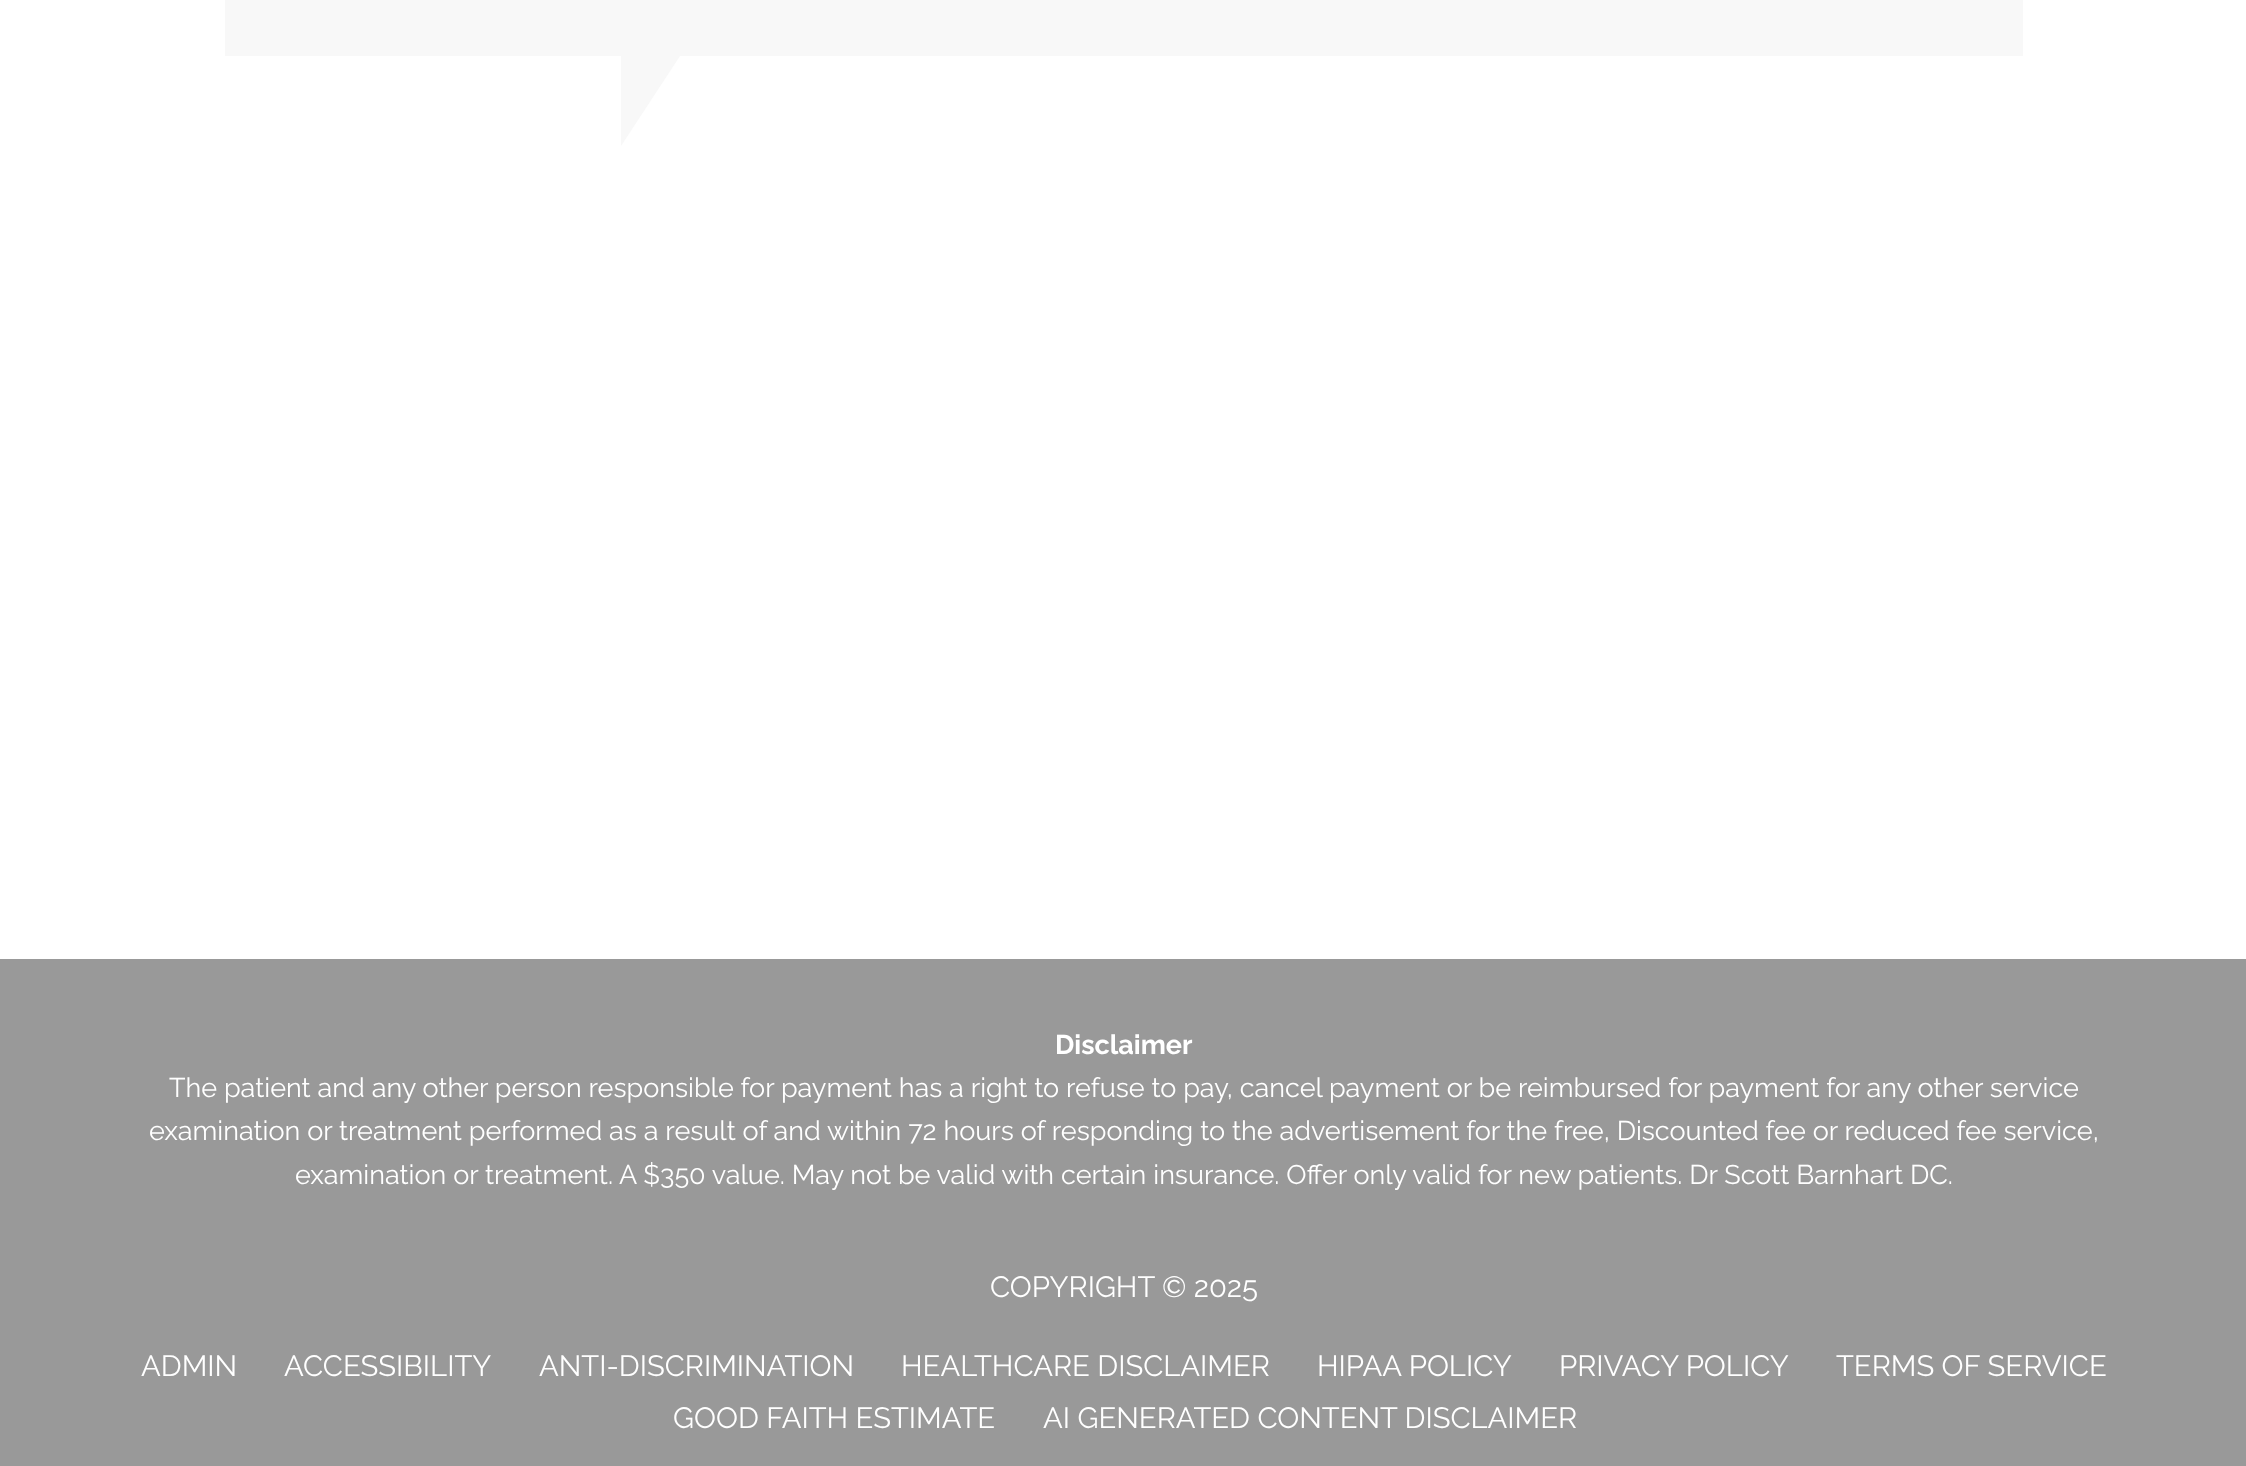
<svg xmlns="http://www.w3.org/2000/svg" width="2246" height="1466">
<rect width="100%" height="100%" fill="#fff"/>
<rect x="225" width="1798" height="56" fill="#f8f8f8"/>
<path d="M621 56h59l-59 90z" fill="#f8f8f8"/>
<rect y="959" width="2246" height="507" fill="#999"/>
<text x="1055" y="1054" style="font-family:Raleway;font-size:27px;font-weight:bold;fill:#fff">Disclaimer</text>
<text x="169" y="1097" style="font-family:Raleway;font-size:27px;fill:#fff">The patient and any other person responsible for payment has a right to refuse to pay, cancel payment or be reimbursed for payment for any other service</text>
<text x="149" y="1140" style="font-family:Raleway;font-size:27px;fill:#fff">examination or treatment performed as a result of and within 72 hours of responding to the advertisement for the free, Discounted fee or reduced fee service,</text>
<text x="295" y="1184" style="font-family:Raleway;font-size:27px;fill:#fff">examination or treatment. A $350 value. May not be valid with certain insurance. Offer only valid for new patients. Dr Scott Barnhart DC.</text>
<text x="990" y="1297" style="font-family:Raleway;font-size:29.25px;fill:#fff">COPYRIGHT © 2025</text>
<text x="141" y="1376" style="font-family:Raleway;font-size:29.25px;fill:#fff">ADMIN</text>
<text x="284" y="1376" style="font-family:Raleway;font-size:29.25px;fill:#fff">ACCESSIBILITY</text>
<text x="539" y="1376" style="font-family:Raleway;font-size:29.25px;fill:#fff">ANTI-DISCRIMINATION</text>
<text x="901" y="1376" style="font-family:Raleway;font-size:29.25px;fill:#fff">HEALTHCARE DISCLAIMER</text>
<text x="1317" y="1376" style="font-family:Raleway;font-size:29.25px;fill:#fff">HIPAA POLICY</text>
<text x="1559" y="1376" style="font-family:Raleway;font-size:29.25px;fill:#fff">PRIVACY POLICY</text>
<text x="1836" y="1376" style="font-family:Raleway;font-size:29.25px;fill:#fff">TERMS OF SERVICE</text>
<text x="673" y="1428" style="font-family:Raleway;font-size:29.25px;fill:#fff">GOOD FAITH ESTIMATE</text>
<text x="1043" y="1428" style="font-family:Raleway;font-size:29.25px;fill:#fff">AI GENERATED CONTENT DISCLAIMER</text>
</svg>
